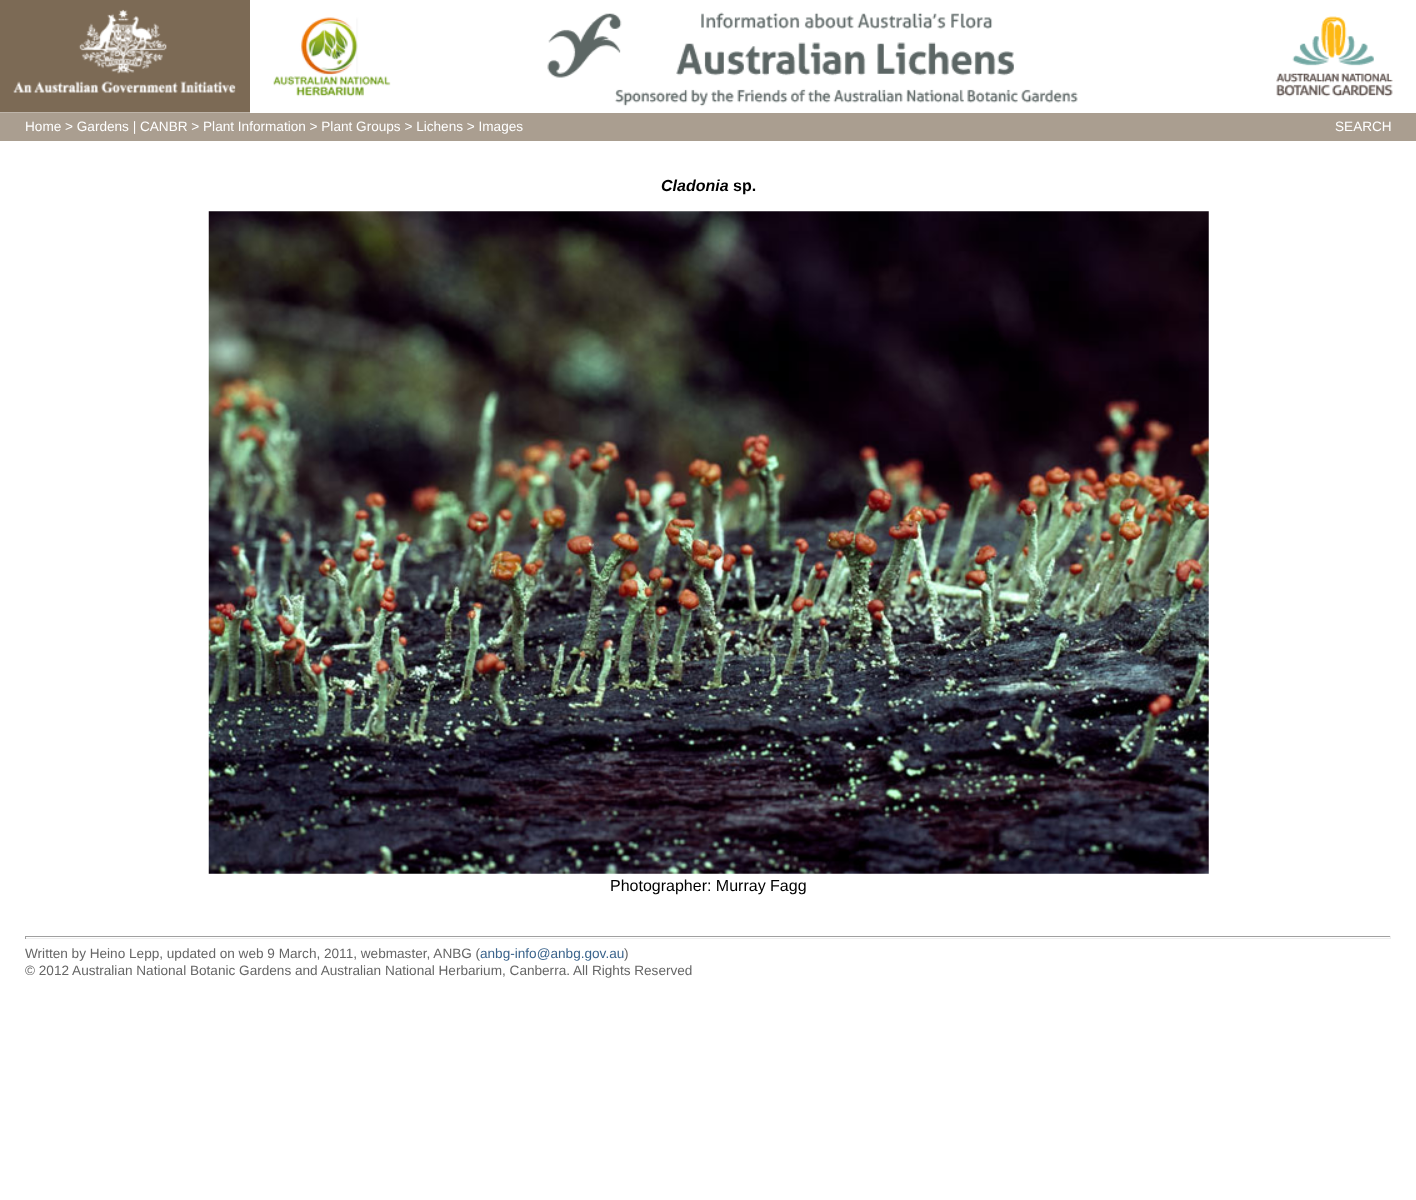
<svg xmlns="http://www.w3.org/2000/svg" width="1416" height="1200">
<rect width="100%" height="100%" fill="#fff"/>
<image x="0" y="0" width="250" height="113" href="media/1.png"/>
<image x="273" y="17" width="118" height="80" href="media/2.png"/>
<image x="547" y="12" width="531" height="95" href="media/3.png"/>
<image x="1276" y="16" width="117" height="81" href="media/4.png"/>
<rect y="113" width="1416" height="28" fill="#aa9e90"/>
<text x="25" y="131" style="font-family:Liberation Sans;font-size:13.6px;fill:#fff">Home &gt; Gardens | CANBR &gt; Plant Information &gt; Plant Groups &gt; Lichens &gt; Images</text>
<text x="1335" y="131" style="font-family:Liberation Sans;font-size:13.6px;fill:#fff">SEARCH</text>
<text x="661" y="191" style="font-family:Liberation Sans;font-size:16px;font-weight:bold;font-style:italic;fill:#000">Cladonia</text>
<text x="733" y="191" style="font-family:Liberation Sans;font-size:16px;font-weight:bold;fill:#000">sp.</text>
<image x="208" y="211" width="1001" height="663" href="media/5.png"/>
<text x="610" y="891" style="font-family:Liberation Sans;font-size:16px;fill:#000">Photographer: Murray Fagg</text>
<rect x="25" y="936" width="1366" height="1" fill="#9f9f9f"/>
<rect x="1390" y="936" width="1" height="3" fill="#eee"/>
<rect x="25" y="938" width="1366" height="1" fill="#eee"/>
<rect x="25" y="936" width="1" height="3" fill="#9f9f9f"/>
<text x="25" y="958" style="font-family:Liberation Sans;font-size:13.6px;fill:#666">Written by Heino Lepp, updated on web 9 March, 2011, webmaster, ANBG (</text>
<text x="480" y="958" style="font-family:Liberation Sans;font-size:13.6px;fill:#3b648c">anbg-info@anbg.gov.au</text>
<text x="624" y="958" style="font-family:Liberation Sans;font-size:13.6px;fill:#666">)</text>
<text x="25" y="975" style="font-family:Liberation Sans;font-size:13.6px;fill:#666">© 2012 Australian National Botanic Gardens and Australian National Herbarium, Canberra. All Rights Reserved</text>
</svg>
